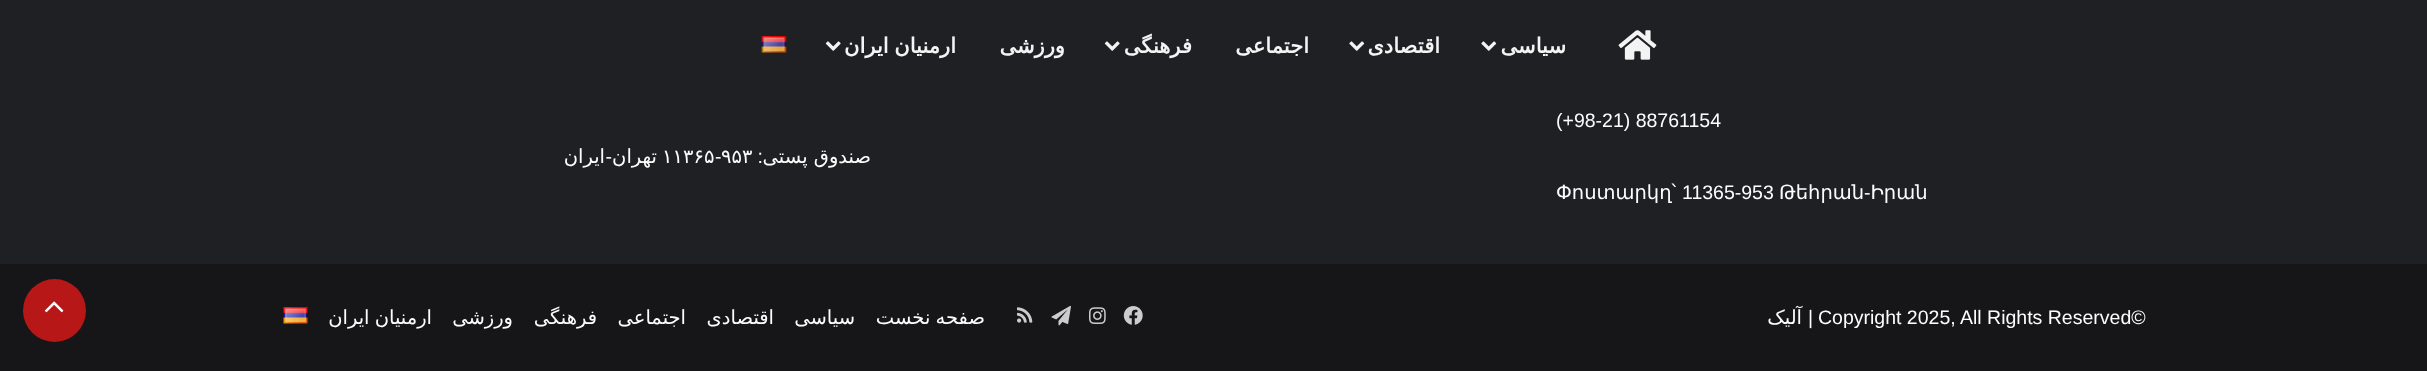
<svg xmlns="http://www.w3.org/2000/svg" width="2427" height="371">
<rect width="100%" height="100%" fill="#1f2024"/>
<image x="1618" y="30" width="39" height="30" href="media/1.png"/>
<text x="1566" y="53" style="font-family:DejaVu Sans;font-size:21px;font-weight:bold;direction:rtl;fill:#f4f4f4">سیاسی</text>
<image x="1481" y="41" width="16" height="10" href="media/2.png"/>
<text x="1440" y="53" style="font-family:DejaVu Sans;font-size:21px;font-weight:bold;direction:rtl;fill:#f4f4f4">اقتصادی</text>
<image x="1349" y="41" width="16" height="10" href="media/2.png"/>
<text x="1309" y="53" style="font-family:DejaVu Sans;font-size:21px;font-weight:bold;direction:rtl;fill:#f4f4f4">اجتماعی</text>
<text x="1192" y="53" style="font-family:DejaVu Sans;font-size:21px;font-weight:bold;direction:rtl;fill:#f4f4f4">فرهنگی</text>
<image x="1104" y="41" width="16" height="10" href="media/3.png"/>
<text x="1065" y="53" style="font-family:DejaVu Sans;font-size:21px;font-weight:bold;direction:rtl;fill:#f4f4f4">ورزشی</text>
<text x="956" y="53" word-spacing="-1" style="font-family:DejaVu Sans;font-size:21px;font-weight:bold;direction:rtl;fill:#f4f4f4">ارمنیان ایران</text>
<image x="825" y="41" width="16" height="10" href="media/4.png"/>
<image x="761" y="36" width="26" height="17" href="media/5.png"/>
<text x="1556" y="127" style="font-family:Liberation Sans;font-size:19.5px;fill:#fdfdfd">(+98-21) 88761154</text>
<text x="1779" y="199" style="font-family:DejaVu Sans;font-size:19.5px;fill:#fdfdfd">Թեհրան Իրան</text>
<text x="1682" y="199" style="font-family:Liberation Sans;font-size:19.5px;fill:#fdfdfd">11365-953</text>
<text x="1556" y="199" style="font-family:DejaVu Sans;font-size:19.5px;fill:#fdfdfd">Փոստարկղ՝</text>
<text x="1864" y="199" style="font-family:Liberation Sans;font-size:19.5px;fill:#fdfdfd">-</text>
<text x="871" y="163" style="font-family:DejaVu Sans;font-size:19.5px;direction:rtl;fill:#fdfdfd">صندوق پستی</text>
<text x="763" y="163" style="font-family:Liberation Sans;font-size:19.5px;direction:rtl;fill:#fdfdfd">:</text>
<text x="721" y="163" style="font-family:DejaVu Sans;font-size:19.5px;fill:#fdfdfd">۹۵۳</text>
<text x="715" y="163" style="font-family:Liberation Sans;font-size:19.5px;fill:#fdfdfd">-</text>
<text x="662" y="163" style="font-family:DejaVu Sans;font-size:19.5px;fill:#fdfdfd">۱۱۳۶۵</text>
<text x="657" y="163" style="font-family:DejaVu Sans;font-size:19.5px;direction:rtl;fill:#fdfdfd">تهران</text>
<text x="612" y="163" style="font-family:Liberation Sans;font-size:19.5px;direction:rtl;fill:#fdfdfd">-</text>
<text x="605" y="163" style="font-family:DejaVu Sans;font-size:19.5px;direction:rtl;fill:#fdfdfd">ایران</text>
<rect y="264" width="2427" height="107" fill="#161619"/>
<text x="1818" y="324" style="font-family:Liberation Sans;font-size:19.5px;fill:#fdfdfd">Copyright 2025, All Rights Reserved©</text>
<text x="1813" y="324" style="font-family:Liberation Sans;font-size:19.5px;direction:rtl;fill:#fdfdfd">|</text>
<text x="1802" y="324" style="font-family:DejaVu Sans;font-size:19.5px;direction:rtl;fill:#fdfdfd">آلیک</text>
<image x="1123" y="306" width="20" height="19" href="media/6.png"/>
<image x="1089" y="307" width="17" height="17" href="media/7.png"/>
<image x="1051" y="305" width="20" height="21" href="media/8.png"/>
<image x="1017" y="307" width="16" height="16" href="media/9.png"/>
<text x="985" y="324" word-spacing="-1" style="font-family:DejaVu Sans;font-size:19.5px;direction:rtl;fill:#fdfdfd">صفحه نخست</text>
<text x="855" y="324" style="font-family:DejaVu Sans;font-size:19.5px;direction:rtl;fill:#fdfdfd">سیاسی</text>
<text x="774" y="324" style="font-family:DejaVu Sans;font-size:19.5px;direction:rtl;fill:#fdfdfd">اقتصادی</text>
<text x="686" y="324" style="font-family:DejaVu Sans;font-size:19.5px;direction:rtl;fill:#fdfdfd">اجتماعی</text>
<text x="597" y="324" style="font-family:DejaVu Sans;font-size:19.5px;direction:rtl;fill:#fdfdfd">فرهنگی</text>
<text x="513" y="324" style="font-family:DejaVu Sans;font-size:19.5px;direction:rtl;fill:#fdfdfd">ورزشی</text>
<text x="432" y="324" word-spacing="-1" style="font-family:DejaVu Sans;font-size:19.5px;direction:rtl;fill:#fdfdfd">ارمنیان ایران</text>
<image x="283" y="307" width="25" height="17" href="media/10.png"/>
<circle cx="54.5" cy="310.5" r="31.5" fill="#b71717"/>
<image x="44" y="301" width="20" height="12" href="media/11.png"/>
</svg>
